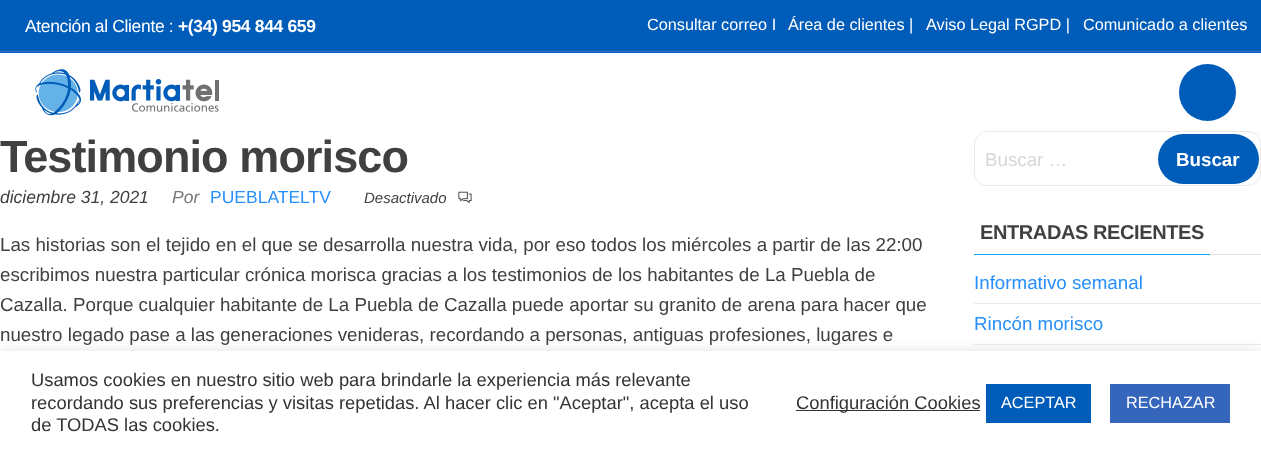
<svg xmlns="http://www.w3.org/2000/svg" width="1261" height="453">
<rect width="100%" height="100%" fill="#fff"/>
<rect width="1261" height="53" fill="#005cb9"/>
<rect y="51" width="1261" height="1" fill="#317ac3"/>
<text x="25" y="32" style="font-family:Liberation Sans;font-size:17.5px;letter-spacing:-0.35px;fill:#fff">Atención al Cliente :</text>
<text x="178" y="32" style="font-family:Liberation Sans;font-size:17.5px;font-weight:bold;letter-spacing:-0.35px;fill:#fff">+(34) 954 844 659</text>
<text x="647" y="30" style="font-family:Liberation Sans;font-size:16.25px;fill:#fff">Consultar correo I</text>
<text x="788" y="30" style="font-family:Liberation Sans;font-size:16.25px;fill:#fff">Área de clientes |</text>
<text x="926" y="30" style="font-family:Liberation Sans;font-size:16.25px;fill:#fff">Aviso Legal RGPD |</text>
<text x="1083" y="30" style="font-family:Liberation Sans;font-size:16.25px;fill:#fff">Comunicado a clientes</text>
<image x="35" y="69" width="184" height="47" href="media/1.png"/>
<circle cx="1207.5" cy="92.5" r="28.5" fill="#005cb9"/>
<text x="0" y="172" style="font-family:Liberation Sans;font-size:45px;font-weight:bold;letter-spacing:-0.9px;fill:#404040">Testimonio morisco</text>
<text x="0" y="203" style="font-family:Liberation Sans;font-size:17.5px;font-style:italic;fill:#404040">diciembre 31, 2021</text>
<text x="172" y="203" style="font-family:Liberation Sans;font-size:17.5px;font-style:italic;fill:#797979">Por</text>
<text x="210" y="203" style="font-family:Liberation Sans;font-size:17.5px;fill:#278ff9">PUEBLATELTV</text>
<text x="364" y="203" style="font-family:Liberation Sans;font-size:15px;font-style:italic;fill:#404040">Desactivado</text>
<image x="458" y="191" width="14" height="13" href="media/2.png"/>
<text x="0" y="251" style="font-family:Liberation Sans;font-size:18.75px;fill:#404040">Las historias son el tejido en el que se desarrolla nuestra vida, por eso todos los miércoles a partir de las 22:00</text>
<text x="0" y="281" style="font-family:Liberation Sans;font-size:18.75px;fill:#404040">escribimos nuestra particular crónica morisca gracias a los testimonios de los habitantes de La Puebla de</text>
<text x="0" y="311" style="font-family:Liberation Sans;font-size:18.75px;fill:#404040">Cazalla. Porque cualquier habitante de La Puebla de Cazalla puede aportar su granito de arena para hacer que</text>
<text x="0" y="341" style="font-family:Liberation Sans;font-size:18.75px;fill:#404040">nuestro legado pase a las generaciones venideras, recordando a personas, antiguas profesiones, lugares e</text>
<rect x="974.5" y="131.5" width="286" height="54" rx="12.5" fill="none" stroke="#eaeaea"/>
<text x="985" y="166" style="font-family:Liberation Sans;font-size:18.75px;fill:#d7d7d7">Buscar …</text>
<rect x="1158" y="134" width="101" height="50" rx="25" fill="#005cb9"/>
<text x="1176" y="166" style="font-family:Liberation Sans;font-size:18.75px;font-weight:bold;fill:#fff">Buscar</text>
<rect x="1210" y="254" width="51" height="1" fill="#e2e2e2"/>
<text x="980" y="239" style="font-family:Liberation Sans;font-size:20px;font-weight:bold;letter-spacing:-0.4px;fill:#404040">ENTRADAS RECIENTES</text>
<rect x="974" y="254" width="236" height="1" fill="#09aafa"/>
<rect x="974" y="303" width="287" height="1" fill="#ebebeb"/>
<text x="974" y="289" style="font-family:Liberation Sans;font-size:18.75px;fill:#278ff9">Informativo semanal</text>
<rect x="974" y="344" width="287" height="1" fill="#ebebeb"/>
<text x="974" y="330" style="font-family:Liberation Sans;font-size:18.75px;fill:#278ff9">Rincón morisco</text>
<rect y="350" width="1261" height="103" fill="#acabab4d" filter="blur(6px)"/>
<rect y="351" width="1261" height="102" fill="#fff"/>
<text x="31" y="386" style="font-family:Liberation Sans;font-size:18.35px;fill:#333">Usamos cookies en nuestro sitio web para brindarle la experiencia más relevante</text>
<text x="31" y="409" style="font-family:Liberation Sans;font-size:18.35px;fill:#333">recordando sus preferencias y visitas repetidas. Al hacer clic en "Aceptar", acepta el uso</text>
<text x="31" y="431" style="font-family:Liberation Sans;font-size:18.35px;fill:#333">de TODAS las cookies.</text>
<rect x="796" y="410" width="184" height="1" fill="#333"/>
<text x="796" y="409" style="font-family:Liberation Sans;font-size:18.35px;fill:#333">Configuración Cookies</text>
<rect x="986" y="384" width="105" height="39" fill="#005cb9"/>
<text x="1001" y="408" style="font-family:Liberation Sans;font-size:16.25px;fill:#fff">ACEPTAR</text>
<rect x="1110" y="384" width="120" height="39" fill="#3566bb"/>
<text x="1126" y="408" style="font-family:Liberation Sans;font-size:16.25px;fill:#fff">RECHAZAR</text>
</svg>
